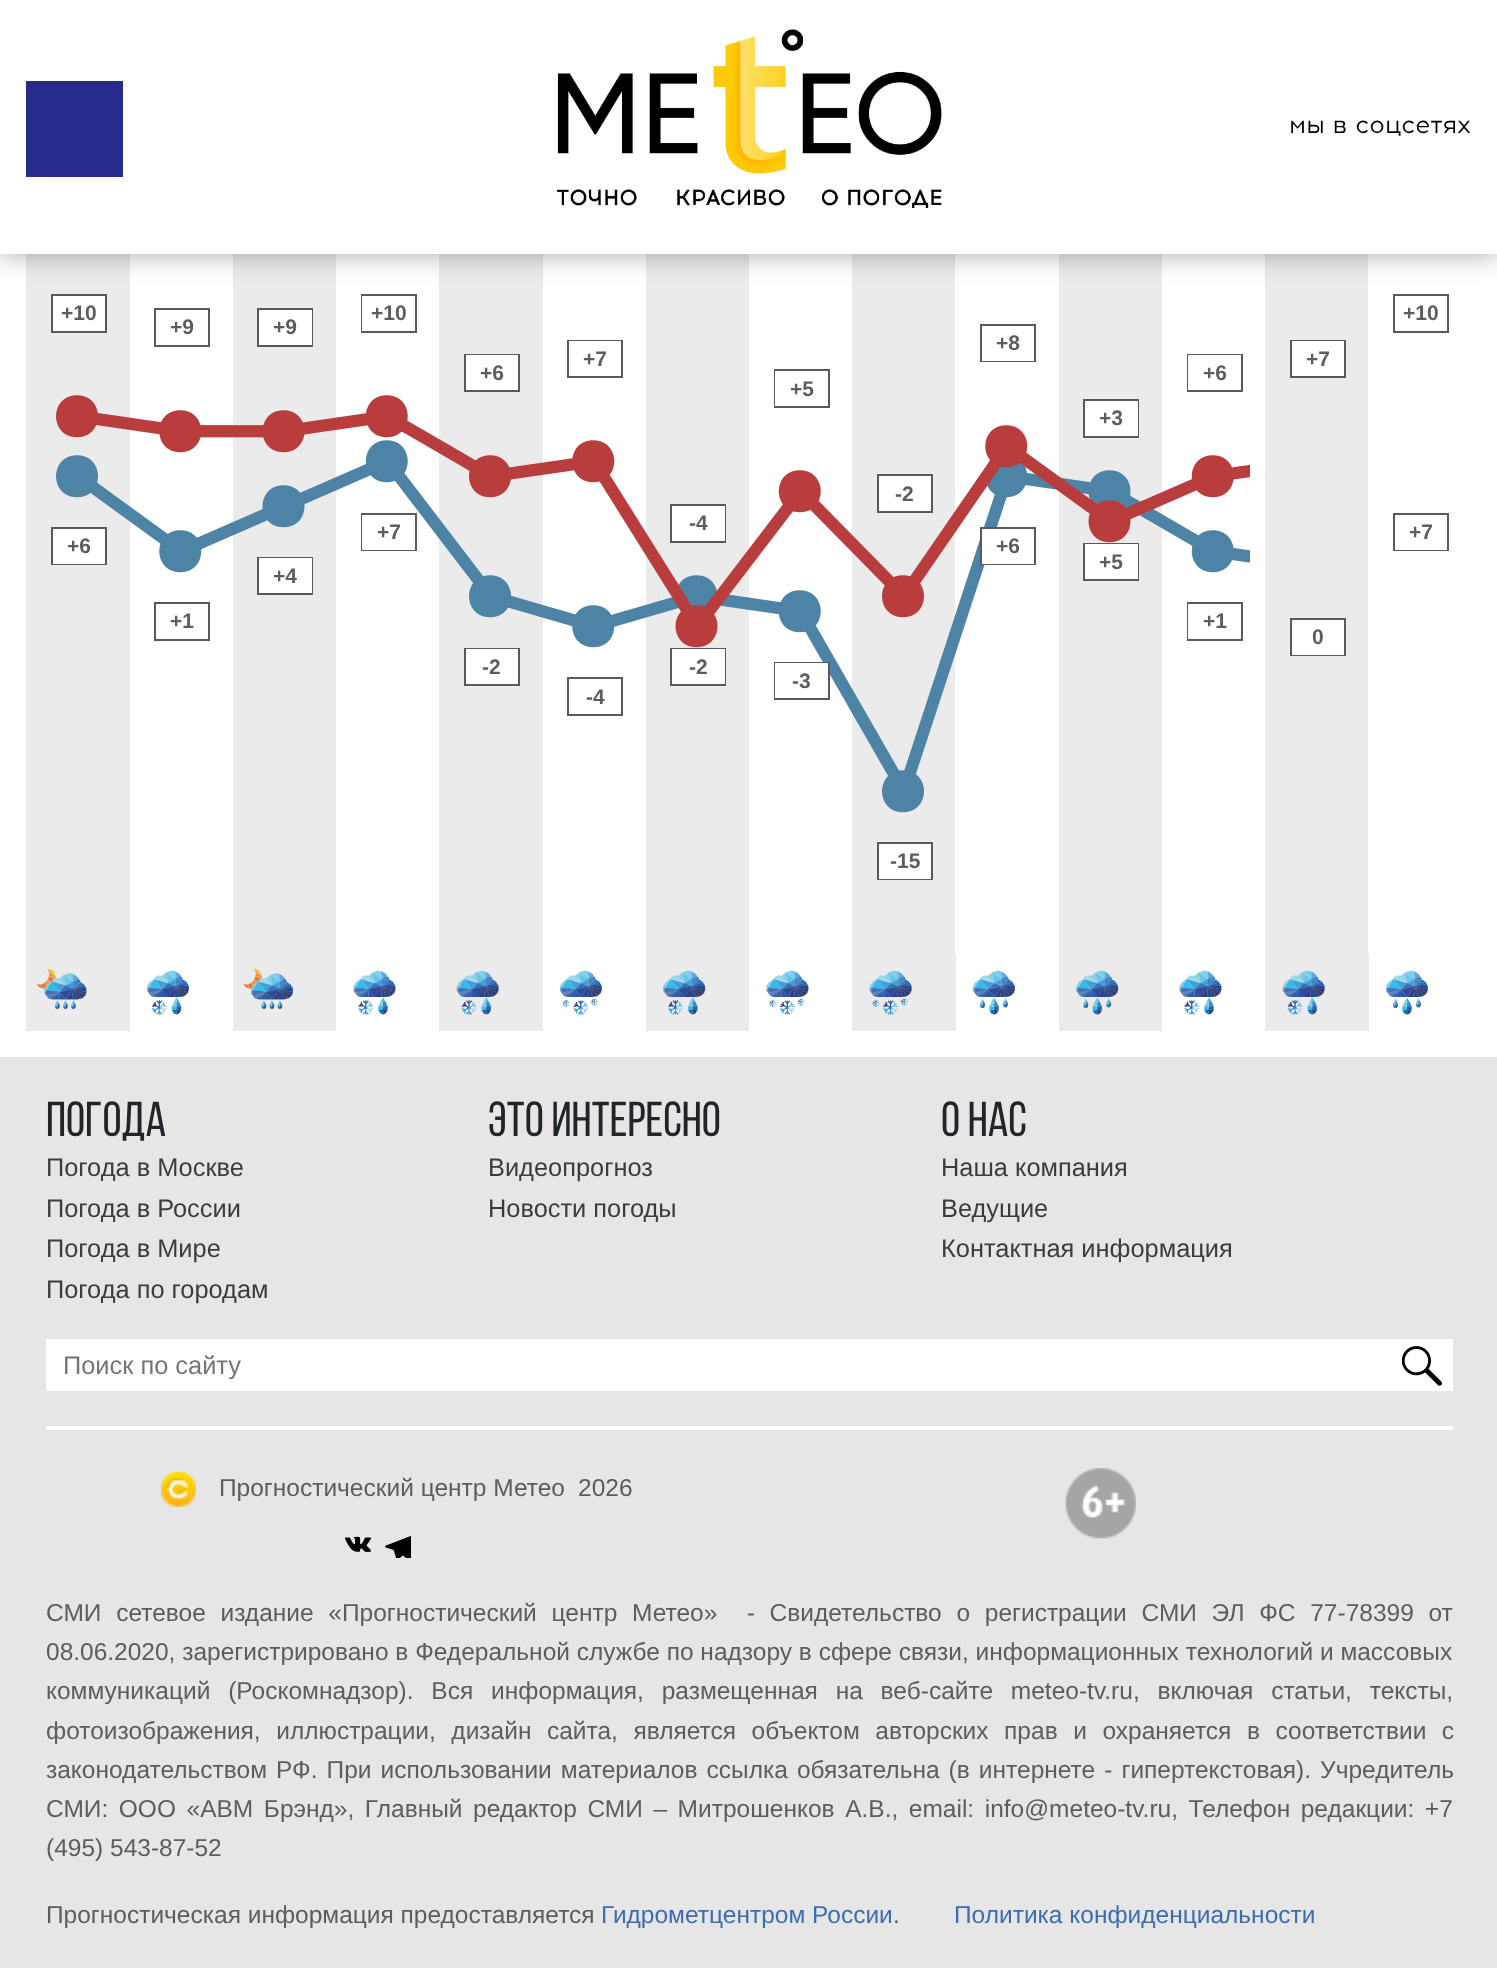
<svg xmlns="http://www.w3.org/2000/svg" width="1497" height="1968">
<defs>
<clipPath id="clip1"><rect x="63" y="1351" width="1328" height="28"/></clipPath>
</defs>
<rect width="100%" height="100%" fill="#fff"/>
<rect x="26" y="254" width="104" height="777" fill="#ebebeb"/>
<rect x="233" y="254" width="103" height="777" fill="#ebebeb"/>
<rect x="439" y="254" width="104" height="777" fill="#ebebeb"/>
<rect x="646" y="254" width="103" height="777" fill="#ebebeb"/>
<rect x="1059" y="254" width="103" height="777" fill="#ebebeb"/>
<rect x="852" y="254" width="103" height="700" fill="#ebebeb"/>
<rect x="1265" y="254" width="103" height="700" fill="#ebebeb"/>
<rect x="52" y="295" width="54" height="37" fill="none" stroke="#595959" stroke-width="2"/>
<rect x="362" y="295" width="54" height="37" fill="none" stroke="#595959" stroke-width="2"/>
<rect x="1394" y="295" width="54" height="37" fill="none" stroke="#595959" stroke-width="2"/>
<rect y="2" width="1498" height="254" fill="#0000004d" filter="blur(13px)"/>
<rect width="1497" height="254" fill="#fff"/>
<rect x="26" y="81" width="97" height="96" fill="#262b8c"/>
<image x="557" y="29" width="385" height="179" href="media/1.png"/>
<text x="1289" y="133" style="font-family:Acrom;font-size:24.5px;fill:#000">мы в соцсетях</text>
<image x="37" y="968" width="50" height="41" href="media/2.png"/>
<image x="147" y="970" width="42" height="45" href="media/3.png"/>
<image x="243" y="968" width="50" height="41" href="media/4.png"/>
<image x="353" y="970" width="43" height="45" href="media/5.png"/>
<image x="456" y="970" width="43" height="45" href="media/6.png"/>
<image x="560" y="970" width="42" height="45" href="media/7.png"/>
<image x="663" y="970" width="43" height="45" href="media/8.png"/>
<image x="766" y="970" width="43" height="45" href="media/9.png"/>
<rect x="852" y="954" width="104" height="77" fill="#ebebeb"/>
<image x="869" y="970" width="43" height="45" href="media/10.png"/>
<image x="973" y="970" width="42" height="45" href="media/11.png"/>
<image x="1076" y="970" width="43" height="45" href="media/12.png"/>
<image x="1179" y="970" width="43" height="45" href="media/13.png"/>
<rect x="1265" y="954" width="104" height="77" fill="#ebebeb"/>
<image x="1282" y="970" width="43" height="45" href="media/14.png"/>
<image x="1386" y="970" width="42" height="45" href="media/11.png"/>
<rect x="53" y="296" width="52" height="35" fill="#fff"/>
<text x="61" y="320" style="font-family:Liberation Sans;font-size:21px;font-weight:bold;fill:#5d5d5d">+10</text>
<rect x="362" y="296" width="1" height="35" fill="#fff"/>
<text x="371" y="320" style="font-family:Liberation Sans;font-size:21px;font-weight:bold;fill:#5d5d5d">+10</text>
<text x="1403" y="320" style="font-family:Liberation Sans;font-size:21px;font-weight:bold;fill:#5d5d5d">+10</text>
<rect x="155" y="309" width="54" height="37" fill="none" stroke="#595959" stroke-width="2"/>
<text x="170" y="334" style="font-family:Liberation Sans;font-size:21px;font-weight:bold;fill:#5d5d5d">+9</text>
<rect x="258" y="309" width="54" height="37" fill="none" stroke="#595959" stroke-width="2"/>
<rect x="259" y="310" width="53" height="35" fill="#fff"/>
<text x="273" y="334" style="font-family:Liberation Sans;font-size:21px;font-weight:bold;fill:#5d5d5d">+9</text>
<rect x="981" y="325" width="54" height="36" fill="none" stroke="#595959" stroke-width="2"/>
<rect x="982" y="360" width="52" height="1" fill="#fff"/>
<text x="996" y="350" style="font-family:Liberation Sans;font-size:21px;font-weight:bold;fill:#5d5d5d">+8</text>
<rect x="568" y="341" width="54" height="36" fill="none" stroke="#595959" stroke-width="2"/>
<rect x="569" y="341" width="52" height="1" fill="#fff"/>
<text x="583" y="366" style="font-family:Liberation Sans;font-size:21px;font-weight:bold;fill:#5d5d5d">+7</text>
<rect x="1291" y="341" width="54" height="36" fill="none" stroke="#595959" stroke-width="2"/>
<rect x="1292" y="341" width="52" height="35" fill="#fff"/>
<text x="1306" y="366" style="font-family:Liberation Sans;font-size:21px;font-weight:bold;fill:#5d5d5d">+7</text>
<rect x="465" y="355" width="54" height="36" fill="none" stroke="#595959" stroke-width="2"/>
<rect x="466" y="355" width="52" height="35" fill="#fff"/>
<text x="480" y="380" style="font-family:Liberation Sans;font-size:21px;font-weight:bold;fill:#5d5d5d">+6</text>
<rect x="1188" y="355" width="54" height="36" fill="none" stroke="#595959" stroke-width="2"/>
<rect x="1188" y="355" width="53" height="35" fill="#fff"/>
<text x="1203" y="380" style="font-family:Liberation Sans;font-size:21px;font-weight:bold;fill:#5d5d5d">+6</text>
<image x="56" y="395" width="1194" height="418" href="media/15.png"/>
<rect x="775" y="370" width="54" height="37" fill="none" stroke="#595959" stroke-width="2"/>
<rect x="775" y="371" width="1" height="35" fill="#fff"/>
<text x="790" y="396" style="font-family:Liberation Sans;font-size:21px;font-weight:bold;fill:#5d5d5d">+5</text>
<rect x="1084" y="400" width="54" height="37" fill="none" stroke="#595959" stroke-width="2"/>
<rect x="1085" y="401" width="53" height="35" fill="#fff"/>
<text x="1099" y="425" style="font-family:Liberation Sans;font-size:21px;font-weight:bold;fill:#5d5d5d">+3</text>
<rect x="878" y="475" width="54" height="37" fill="none" stroke="#595959" stroke-width="2"/>
<rect x="879" y="476" width="52" height="35" fill="#fff"/>
<text x="895" y="501" style="font-family:Liberation Sans;font-size:21px;font-weight:bold;fill:#5d5d5d">-2</text>
<rect x="671" y="505" width="54" height="37" fill="none" stroke="#595959" stroke-width="2"/>
<rect x="672" y="506" width="53" height="35" fill="#fff"/>
<text x="689" y="530" style="font-family:Liberation Sans;font-size:21px;font-weight:bold;fill:#5d5d5d">-4</text>
<rect x="362" y="514" width="54" height="36" fill="none" stroke="#595959" stroke-width="2"/>
<rect x="362" y="515" width="53" height="35" fill="#fff"/>
<text x="377" y="539" style="font-family:Liberation Sans;font-size:21px;font-weight:bold;fill:#5d5d5d">+7</text>
<rect x="1394" y="514" width="54" height="36" fill="none" stroke="#595959" stroke-width="2"/>
<rect x="1395" y="549" width="52" height="1" fill="#fff"/>
<text x="1409" y="539" style="font-family:Liberation Sans;font-size:21px;font-weight:bold;fill:#5d5d5d">+7</text>
<rect x="52" y="528" width="54" height="36" fill="none" stroke="#595959" stroke-width="2"/>
<rect x="53" y="529" width="52" height="35" fill="#fff"/>
<text x="67" y="553" style="font-family:Liberation Sans;font-size:21px;font-weight:bold;fill:#5d5d5d">+6</text>
<rect x="981" y="528" width="54" height="36" fill="none" stroke="#595959" stroke-width="2"/>
<rect x="982" y="529" width="52" height="35" fill="#fff"/>
<text x="996" y="553" style="font-family:Liberation Sans;font-size:21px;font-weight:bold;fill:#5d5d5d">+6</text>
<rect x="1084" y="544" width="54" height="36" fill="none" stroke="#595959" stroke-width="2"/>
<rect x="1085" y="544" width="53" height="35" fill="#fff"/>
<text x="1099" y="569" style="font-family:Liberation Sans;font-size:21px;font-weight:bold;fill:#5d5d5d">+5</text>
<rect x="258" y="558" width="54" height="36" fill="none" stroke="#595959" stroke-width="2"/>
<rect x="259" y="558" width="53" height="35" fill="#fff"/>
<text x="273" y="583" style="font-family:Liberation Sans;font-size:21px;font-weight:bold;fill:#5d5d5d">+4</text>
<rect x="155" y="603" width="54" height="37" fill="none" stroke="#595959" stroke-width="2"/>
<text x="170" y="628" style="font-family:Liberation Sans;font-size:21px;font-weight:bold;fill:#5d5d5d">+1</text>
<rect x="1188" y="603" width="54" height="37" fill="none" stroke="#595959" stroke-width="2"/>
<rect x="1188" y="604" width="1" height="35" fill="#fff"/>
<text x="1203" y="628" style="font-family:Liberation Sans;font-size:21px;font-weight:bold;fill:#5d5d5d">+1</text>
<rect x="1291" y="619" width="54" height="36" fill="none" stroke="#595959" stroke-width="2"/>
<rect x="1292" y="620" width="52" height="35" fill="#fff"/>
<text x="1312" y="644" style="font-family:Liberation Sans;font-size:21px;font-weight:bold;fill:#5d5d5d">0</text>
<rect x="465" y="649" width="54" height="36" fill="none" stroke="#595959" stroke-width="2"/>
<rect x="466" y="649" width="52" height="35" fill="#fff"/>
<text x="482" y="674" style="font-family:Liberation Sans;font-size:21px;font-weight:bold;fill:#5d5d5d">-2</text>
<rect x="671" y="649" width="54" height="36" fill="none" stroke="#595959" stroke-width="2"/>
<rect x="672" y="649" width="53" height="35" fill="#fff"/>
<text x="689" y="674" style="font-family:Liberation Sans;font-size:21px;font-weight:bold;fill:#5d5d5d">-2</text>
<rect x="775" y="663" width="54" height="36" fill="none" stroke="#595959" stroke-width="2"/>
<rect x="775" y="663" width="53" height="35" fill="#fff"/>
<text x="792" y="688" style="font-family:Liberation Sans;font-size:21px;font-weight:bold;fill:#5d5d5d">-3</text>
<rect x="568" y="678" width="54" height="37" fill="none" stroke="#595959" stroke-width="2"/>
<text x="586" y="704" style="font-family:Liberation Sans;font-size:21px;font-weight:bold;fill:#5d5d5d">-4</text>
<rect x="878" y="843" width="54" height="36" fill="none" stroke="#595959" stroke-width="2"/>
<rect x="879" y="844" width="52" height="35" fill="#fff"/>
<text x="890" y="868" style="font-family:Liberation Sans;font-size:21px;font-weight:bold;fill:#5d5d5d">-15</text>
<rect y="1057" width="1497" height="911" fill="#e6e6e6"/>
<text x="46" y="1136" style="font-family:Bebas Neue;font-size:49px;fill:#212529">Погода</text>
<text x="46" y="1176" style="font-family:Liberation Sans;font-size:25.4px;fill:#3c3c3c">Погода в Москве</text>
<text x="46" y="1217" style="font-family:Liberation Sans;font-size:25.4px;fill:#3c3c3c">Погода в России</text>
<text x="46" y="1257" style="font-family:Liberation Sans;font-size:25.4px;fill:#3c3c3c">Погода в Мире</text>
<text x="46" y="1298" style="font-family:Liberation Sans;font-size:25.4px;fill:#3c3c3c">Погода по городам</text>
<text x="488" y="1136" style="font-family:Bebas Neue;font-size:49px;fill:#212529">Это интересно</text>
<text x="488" y="1176" style="font-family:Liberation Sans;font-size:25.4px;fill:#3c3c3c">Видеопрогноз</text>
<text x="488" y="1217" style="font-family:Liberation Sans;font-size:25.4px;fill:#3c3c3c">Новости погоды</text>
<text x="941" y="1136" style="font-family:Bebas Neue;font-size:49px;fill:#212529">О НАС</text>
<text x="941" y="1176" style="font-family:Liberation Sans;font-size:25.4px;fill:#3c3c3c">Наша компания</text>
<text x="941" y="1217" style="font-family:Liberation Sans;font-size:25.4px;fill:#3c3c3c">Ведущие</text>
<text x="941" y="1257" style="font-family:Liberation Sans;font-size:25.4px;fill:#3c3c3c">Контактная информация</text>
<rect x="46" y="1339" width="1407" height="52" fill="#fff"/>
<g clip-path="url(#clip1)">
<text x="63" y="1374" style="font-family:Liberation Sans;font-size:25.4px;fill:#757575">Поиск по сайту</text>
</g>
<image x="1402" y="1346" width="40" height="40" href="media/16.png"/>
<rect x="46" y="1426" width="1407" height="4" fill="#fff"/>
<image x="161" y="1471" width="35" height="36" href="media/17.png"/>
<text x="219" y="1496" style="font-family:Liberation Sans;font-size:24.5px;fill:#5d5d5d">Прогностический центр Метео</text>
<text x="578" y="1496" style="font-family:Liberation Sans;font-size:24.5px;fill:#5d5d5d">2026</text>
<image x="345" y="1536" width="26" height="16" href="media/18.png"/>
<image x="385" y="1535" width="26" height="23" href="media/19.png"/>
<image x="1065" y="1468" width="71" height="71" href="media/20.png"/>
<text x="46" y="1621" word-spacing="7.9" style="font-family:Liberation Sans;font-size:24.5px;fill:#5d5d5d" xml:space="preserve">СМИ сетевое издание «Прогностический центр Метео»  - Свидетельство о регистрации СМИ ЭЛ ФС 77-78399 от</text>
<text x="46" y="1660" style="font-family:Liberation Sans;font-size:24.5px;fill:#5d5d5d">08.06.2020, зарегистрировано в Федеральной службе по надзору в сфере связи, информационных технологий и массовых</text>
<text x="46" y="1699" word-spacing="11" style="font-family:Liberation Sans;font-size:24.5px;fill:#5d5d5d">коммуникаций (Роскомнадзор). Вся информация, размещенная на веб-сайте meteo-tv.ru, включая статьи, тексты,</text>
<text x="46" y="1739" word-spacing="8.75" style="font-family:Liberation Sans;font-size:24.5px;fill:#5d5d5d">фотоизображения, иллюстрации, дизайн сайта, является объектом авторских прав и охраняется в соответствии с</text>
<text x="46" y="1778" word-spacing="2.25" style="font-family:Liberation Sans;font-size:24.5px;fill:#5d5d5d">законодательством РФ. При использовании материалов ссылка обязательна (в интернете - гипертекстовая). Учредитель</text>
<text x="46" y="1817" word-spacing="3.75" style="font-family:Liberation Sans;font-size:24.5px;fill:#5d5d5d">СМИ: ООО «АВМ Брэнд», Главный редактор СМИ – Митрошенков А.В., email: info@meteo-tv.ru, Телефон редакции: +7</text>
<text x="46" y="1856" style="font-family:Liberation Sans;font-size:24.5px;fill:#5d5d5d">(495) 543-87-52</text>
<text x="46" y="1923" style="font-family:Liberation Sans;font-size:24.5px;fill:#5d5d5d">Прогностическая информация предоставляется</text>
<text x="601" y="1923" style="font-family:Liberation Sans;font-size:24.5px;fill:#3c6db2">Гидрометцентром России</text>
<text x="893" y="1923" style="font-family:Liberation Sans;font-size:24.5px;fill:#5d5d5d">.</text>
<text x="954" y="1923" style="font-family:Liberation Sans;font-size:24.5px;fill:#3c6db2">Политика конфиденциальности</text>
</svg>
